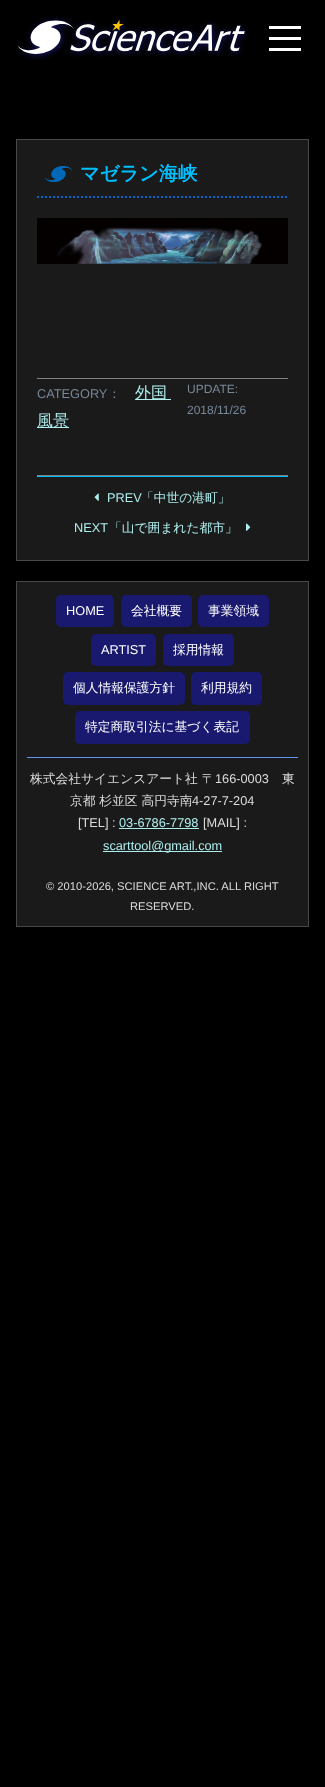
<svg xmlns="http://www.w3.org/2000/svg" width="325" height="1787">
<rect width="100%" height="100%" fill="#000"/>
<image x="17" y="16" width="233" height="45" href="media/1.png"/>
<rect x="269" y="26" width="32" height="3" fill="#fff"/>
<rect x="269" y="37" width="32" height="3" fill="#fff"/>
<rect x="269" y="48" width="32" height="3" fill="#fff"/>
<rect x="16.5" y="139.5" width="292" height="421" fill="#1a1a1a" stroke="#484848"/>
<path d="M37 197h251" fill="none" stroke="#06c" stroke-width="2" stroke-dasharray="2 2"/>
<image x="45" y="166" width="27" height="16" href="media/2.png"/>
<text x="80" y="180" style="font-family:WenQuanYi Zen Hei;font-size:19.25px;font-weight:bold;fill:#00bfff">マゼラン海峡</text>
<image x="37" y="218" width="251" height="46" href="media/3.png"/>
<rect x="37" y="378" width="251" height="1" fill="#808080"/>
<rect x="37" y="475" width="251" height="1" fill="#808080"/>
<text x="37" y="398" style="font-family:Liberation Sans;font-size:12.75px;fill:#789">CATEGORY</text>
<text x="108" y="398" style="font-family:WenQuanYi Zen Hei;font-size:12.75px;font-weight:500;fill:#789">：</text>
<rect x="135" y="399" width="36" height="1" fill="#afeeee"/>
<text x="135" y="398" style="font-family:WenQuanYi Zen Hei;font-size:16px;font-weight:500;fill:#afeeee">外国</text>
<rect x="37" y="427" width="32" height="1" fill="#afeeee"/>
<text x="37" y="426" style="font-family:WenQuanYi Zen Hei;font-size:16px;font-weight:500;fill:#afeeee">風景</text>
<text x="187" y="393" style="font-family:Liberation Sans;font-size:12px;fill:#789">UPDATE:</text>
<text x="187" y="414" style="font-family:Liberation Sans;font-size:12px;fill:#789">2018/11/26</text>
<rect x="37" y="476" width="251" height="1" fill="#00bfff"/>
<image x="94" y="493" width="5" height="8" href="media/4.png"/>
<text x="107" y="502" style="font-family:Liberation Sans;font-size:12.75px;fill:#afeeee">PREV</text>
<text x="141" y="502" style="font-family:WenQuanYi Zen Hei;font-size:12.75px;font-weight:500;fill:#afeeee">「中世の港町」</text>
<text x="74" y="532" style="font-family:Liberation Sans;font-size:12.75px;fill:#afeeee">NEXT</text>
<text x="109" y="532" style="font-family:WenQuanYi Zen Hei;font-size:12.75px;font-weight:500;fill:#afeeee">「山で囲まれた都市」</text>
<image x="246" y="523" width="5" height="8" href="media/5.png"/>
<rect x="16.5" y="581.5" width="292" height="345" fill="#1a1a1a" stroke="#484848"/>
<rect x="27" y="757" width="271" height="1" fill="#6495ed"/>
<rect x="56" y="595" width="58" height="32" rx="5" fill="#191970"/>
<text x="66" y="615" style="font-family:Liberation Sans;font-size:12.75px;fill:#fff">HOME</text>
<rect x="121" y="595" width="71" height="32" rx="5" fill="#191970"/>
<text x="131" y="615" style="font-family:WenQuanYi Zen Hei;font-size:12.75px;font-weight:500;fill:#fff">会社概要</text>
<rect x="198" y="595" width="71" height="32" rx="5" fill="#191970"/>
<text x="208" y="615" style="font-family:WenQuanYi Zen Hei;font-size:12.75px;font-weight:500;fill:#fff">事業領域</text>
<rect x="91" y="634" width="65" height="32" rx="5" fill="#191970"/>
<text x="101" y="654" style="font-family:Liberation Sans;font-size:12.75px;fill:#fff">ARTIST</text>
<rect x="163" y="634" width="71" height="32" rx="5" fill="#191970"/>
<text x="173" y="654" style="font-family:WenQuanYi Zen Hei;font-size:12.75px;font-weight:500;fill:#fff">採用情報</text>
<rect x="63" y="672" width="122" height="33" rx="5" fill="#191970"/>
<text x="73" y="692" style="font-family:WenQuanYi Zen Hei;font-size:12.75px;font-weight:500;fill:#fff">個人情報保護方針</text>
<rect x="191" y="672" width="71" height="33" rx="5" fill="#191970"/>
<text x="201" y="692" style="font-family:WenQuanYi Zen Hei;font-size:12.75px;font-weight:500;fill:#fff">利用規約</text>
<rect x="75" y="711" width="175" height="33" rx="5" fill="#191970"/>
<text x="85" y="731" style="font-family:WenQuanYi Zen Hei;font-size:12.75px;font-weight:500;fill:#fff">特定商取引法に基づく表記</text>
<text x="30" y="783" style="font-family:WenQuanYi Zen Hei;font-size:12.75px;font-weight:500;fill:#dcdcdc">株式会社サイエンスアート社 〒</text>
<text x="215" y="783" style="font-family:Liberation Sans;font-size:12.75px;fill:#dcdcdc">166-0003</text>
<text x="282" y="783" style="font-family:WenQuanYi Zen Hei;font-size:12.75px;font-weight:500;fill:#dcdcdc">東</text>
<text x="70" y="805" style="font-family:WenQuanYi Zen Hei;font-size:12.75px;font-weight:500;fill:#dcdcdc">京都 杉並区 高円寺南</text>
<text x="192" y="805" style="font-family:Liberation Sans;font-size:12.75px;fill:#dcdcdc">4-27-7-204</text>
<text x="78" y="827" style="font-family:Liberation Sans;font-size:12.75px;fill:#dcdcdc">[TEL] :</text>
<text x="119" y="827" style="font-family:Liberation Sans;font-size:12.75px;fill:#afeeee">03-6786-7798</text>
<rect x="119" y="828" width="80" height="1" fill="#afeeee"/>
<text x="203" y="827" style="font-family:Liberation Sans;font-size:12.75px;fill:#dcdcdc">[MAIL] :</text>
<rect x="103" y="851" width="119" height="1" fill="#afeeee"/>
<text x="103" y="850" style="font-family:Liberation Sans;font-size:12.75px;fill:#afeeee">scarttool@gmail.com</text>
<text x="46" y="890" style="font-family:Liberation Sans;font-size:11.2px;fill:#dcdcdc">© 2010-2026, SCIENCE ART.,INC. ALL RIGHT</text>
<text x="130" y="910" style="font-family:Liberation Sans;font-size:11.2px;fill:#dcdcdc">RESERVED.</text>
</svg>
